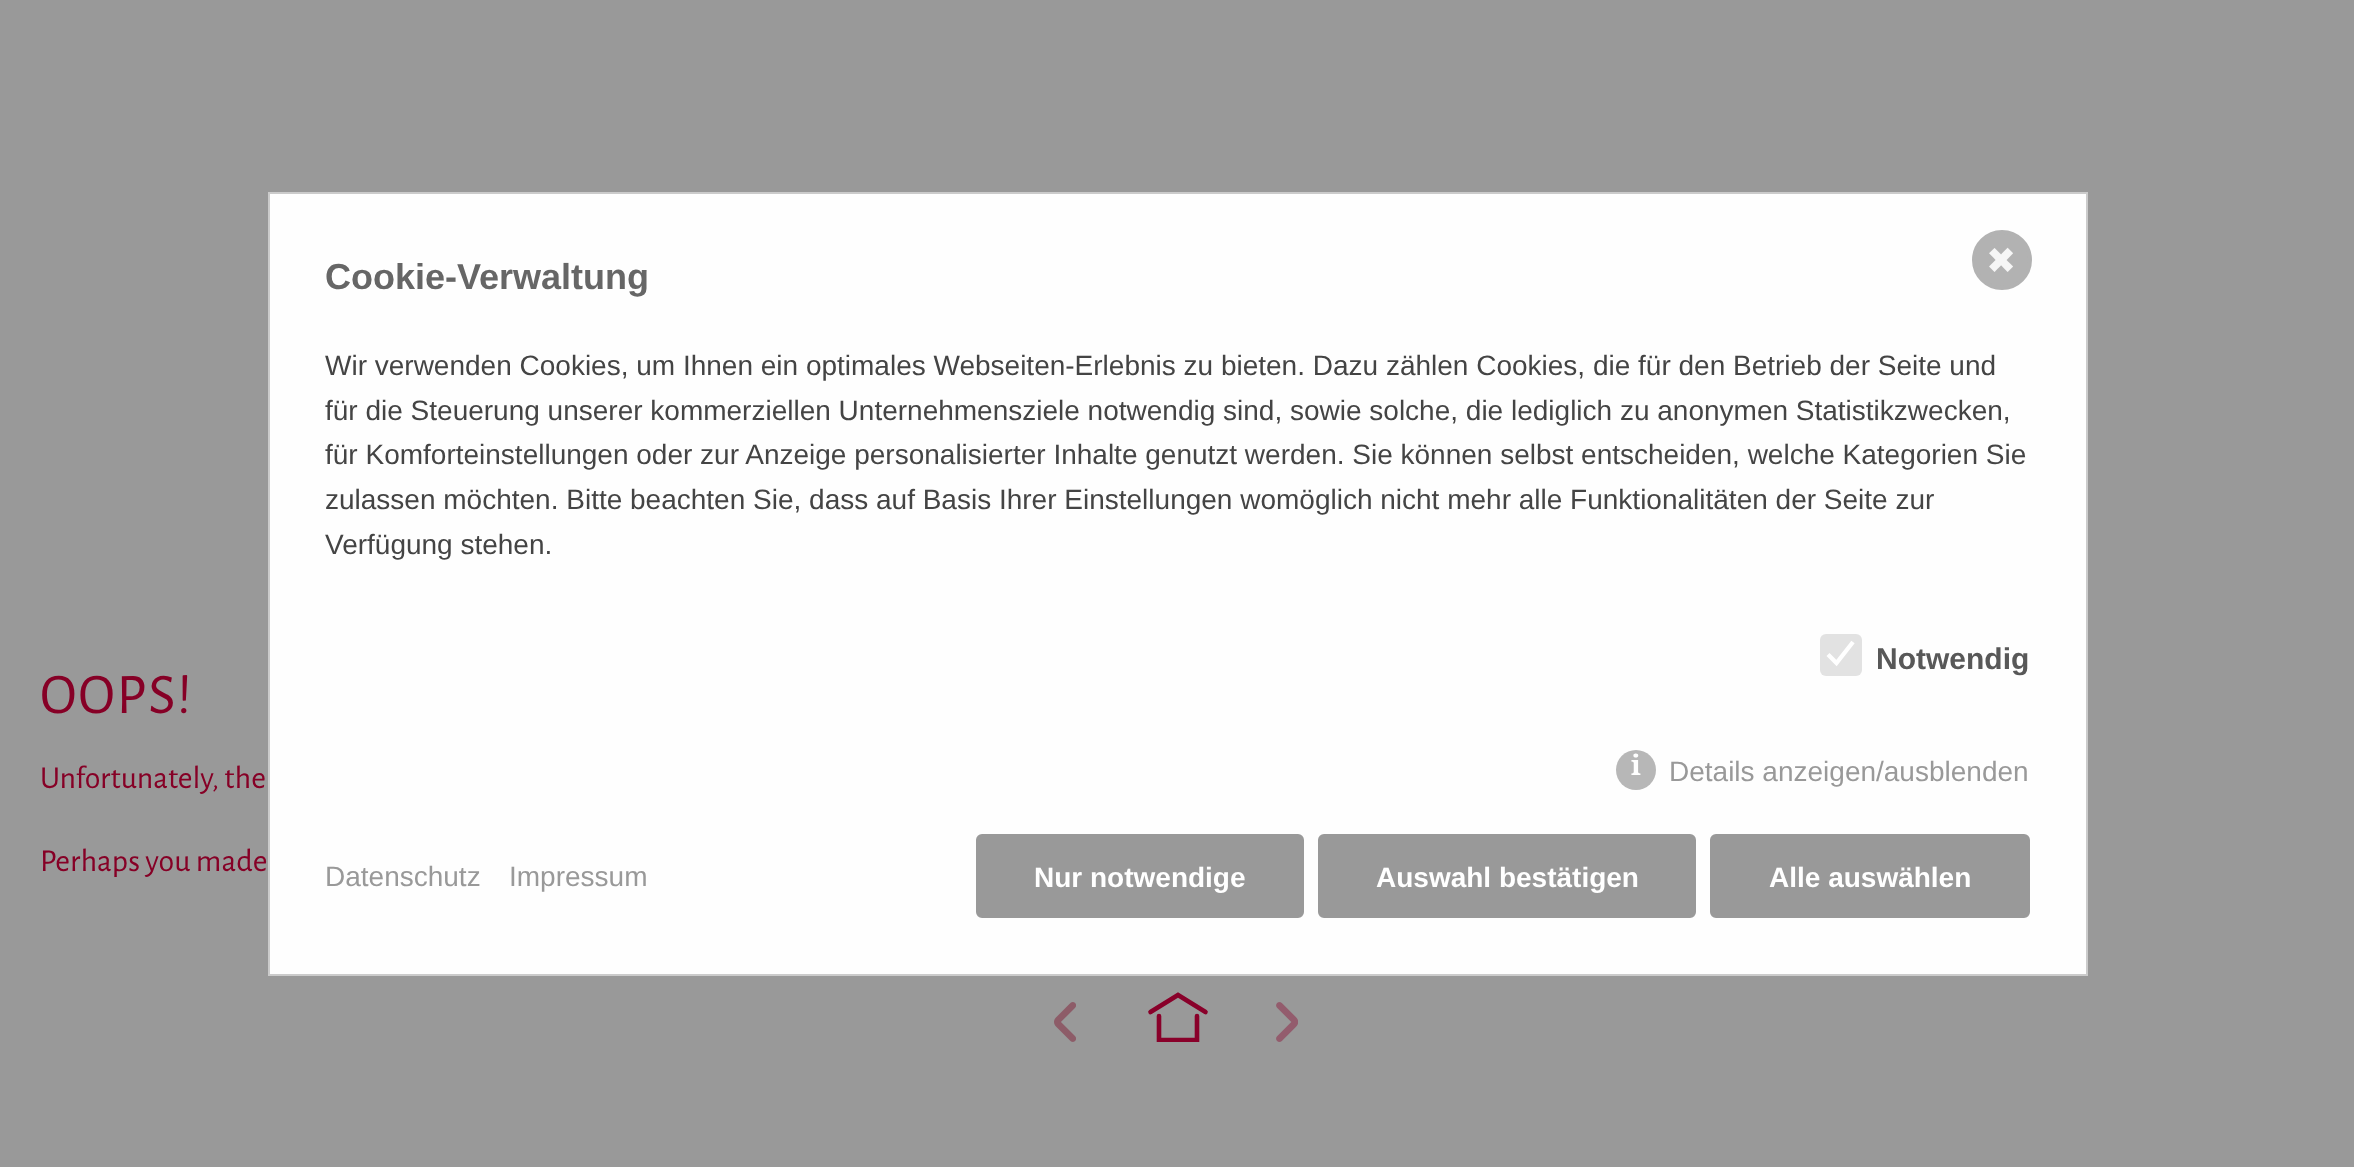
<svg xmlns="http://www.w3.org/2000/svg" width="2354" height="1167">
<defs>
<clipPath id="clip1"><rect x="1148" y="992" width="60" height="50"/></clipPath>
</defs>
<rect width="100%" height="100%" fill="#999"/>
<text x="40" y="713" style="font-family:Alegreya Sans;font-size:57.5px;letter-spacing:1.75px;fill:#860026">OOPS!</text>
<text x="40" y="788" style="font-family:Alegreya Sans;font-size:32px;fill:#860026">Unfortunately, the</text>
<text x="40" y="871" style="font-family:Alegreya Sans;font-size:32px;fill:#860026">Perhaps you made</text>
<rect x="269" y="193" width="1818" height="782" fill="#fefefe" stroke="#cbcbcb" stroke-width="2"/>
<circle cx="2002" cy="260" r="28" fill="#b2b2b2" stroke="#b2b2b2" stroke-width="4"/>
<text x="1986" y="273" style="font-family:DejaVu Sans;font-size:36px;fill:#f6f6f6">✖</text>
<text x="325" y="289" style="font-family:Liberation Sans;font-size:36px;font-weight:bold;fill:#666">Cookie-Verwaltung</text>
<text x="325" y="375" style="font-family:Liberation Sans;font-size:28px;fill:#444">Wir verwenden Cookies, um Ihnen ein optimales Webseiten-Erlebnis zu bieten. Dazu zählen Cookies, die für den Betrieb der Seite und</text>
<text x="325" y="420" style="font-family:Liberation Sans;font-size:28px;fill:#444">für die Steuerung unserer kommerziellen Unternehmensziele notwendig sind, sowie solche, die lediglich zu anonymen Statistikzwecken,</text>
<text x="325" y="464" style="font-family:Liberation Sans;font-size:28px;fill:#444">für Komforteinstellungen oder zur Anzeige personalisierter Inhalte genutzt werden. Sie können selbst entscheiden, welche Kategorien Sie</text>
<text x="325" y="509" style="font-family:Liberation Sans;font-size:28px;fill:#444">zulassen möchten. Bitte beachten Sie, dass auf Basis Ihrer Einstellungen womöglich nicht mehr alle Funktionalitäten der Seite zur</text>
<text x="325" y="554" style="font-family:Liberation Sans;font-size:28px;fill:#444">Verfügung stehen.</text>
<rect x="1820" y="634" width="42" height="42" rx="6" fill="#e2e2e2"/>
<path d="M1828 654.5l8.5 8.5l16.5-21" fill="none" stroke="#fff" stroke-width="4.2"/>
<text x="1876" y="669" style="font-family:Liberation Sans;font-size:30px;font-weight:bold;fill:#585858">Notwendig</text>
<circle cx="1636" cy="770" r="20" fill="#b7b7b7"/>
<text x="1631" y="775" style="font-family:Noto Serif;font-size:28px;font-weight:bold;fill:#fff">i</text>
<text x="1669" y="781" style="font-family:Liberation Sans;font-size:28px;fill:#999">Details anzeigen/ausblenden</text>
<text x="325" y="886" style="font-family:Liberation Sans;font-size:28px;fill:#999">Datenschutz</text>
<text x="509" y="886" style="font-family:Liberation Sans;font-size:28px;fill:#999">Impressum</text>
<rect x="977" y="835" width="326" height="82" rx="5" fill="#999" stroke="#999" stroke-width="2"/>
<text x="1034" y="887" style="font-family:Liberation Sans;font-size:28px;font-weight:bold;fill:#fff">Nur notwendige</text>
<rect x="1319" y="835" width="376" height="82" rx="5" fill="#999" stroke="#999" stroke-width="2"/>
<text x="1376" y="887" style="font-family:Liberation Sans;font-size:28px;font-weight:bold;fill:#fff">Auswahl bestätigen</text>
<rect x="1711" y="835" width="318" height="82" rx="5" fill="#999" stroke="#999" stroke-width="2"/>
<text x="1769" y="887" style="font-family:Liberation Sans;font-size:28px;font-weight:bold;fill:#fff">Alle auswählen</text>
<image x="1054" y="1002" width="22" height="40" href="media/1.png"/>
<g clip-path="url(#clip1)">
<path d="M1197 1016v24h-38v-24" fill="none" stroke="#89002a" stroke-width="4.6" stroke-linecap="round"/>
</g>
<path d="M1150.5 1012l27.5-17l27.5 17" fill="none" stroke="#89002a" stroke-width="4.6" stroke-linecap="round"/>
<image x="1276" y="1002" width="22" height="40" href="media/2.png"/>
</svg>
